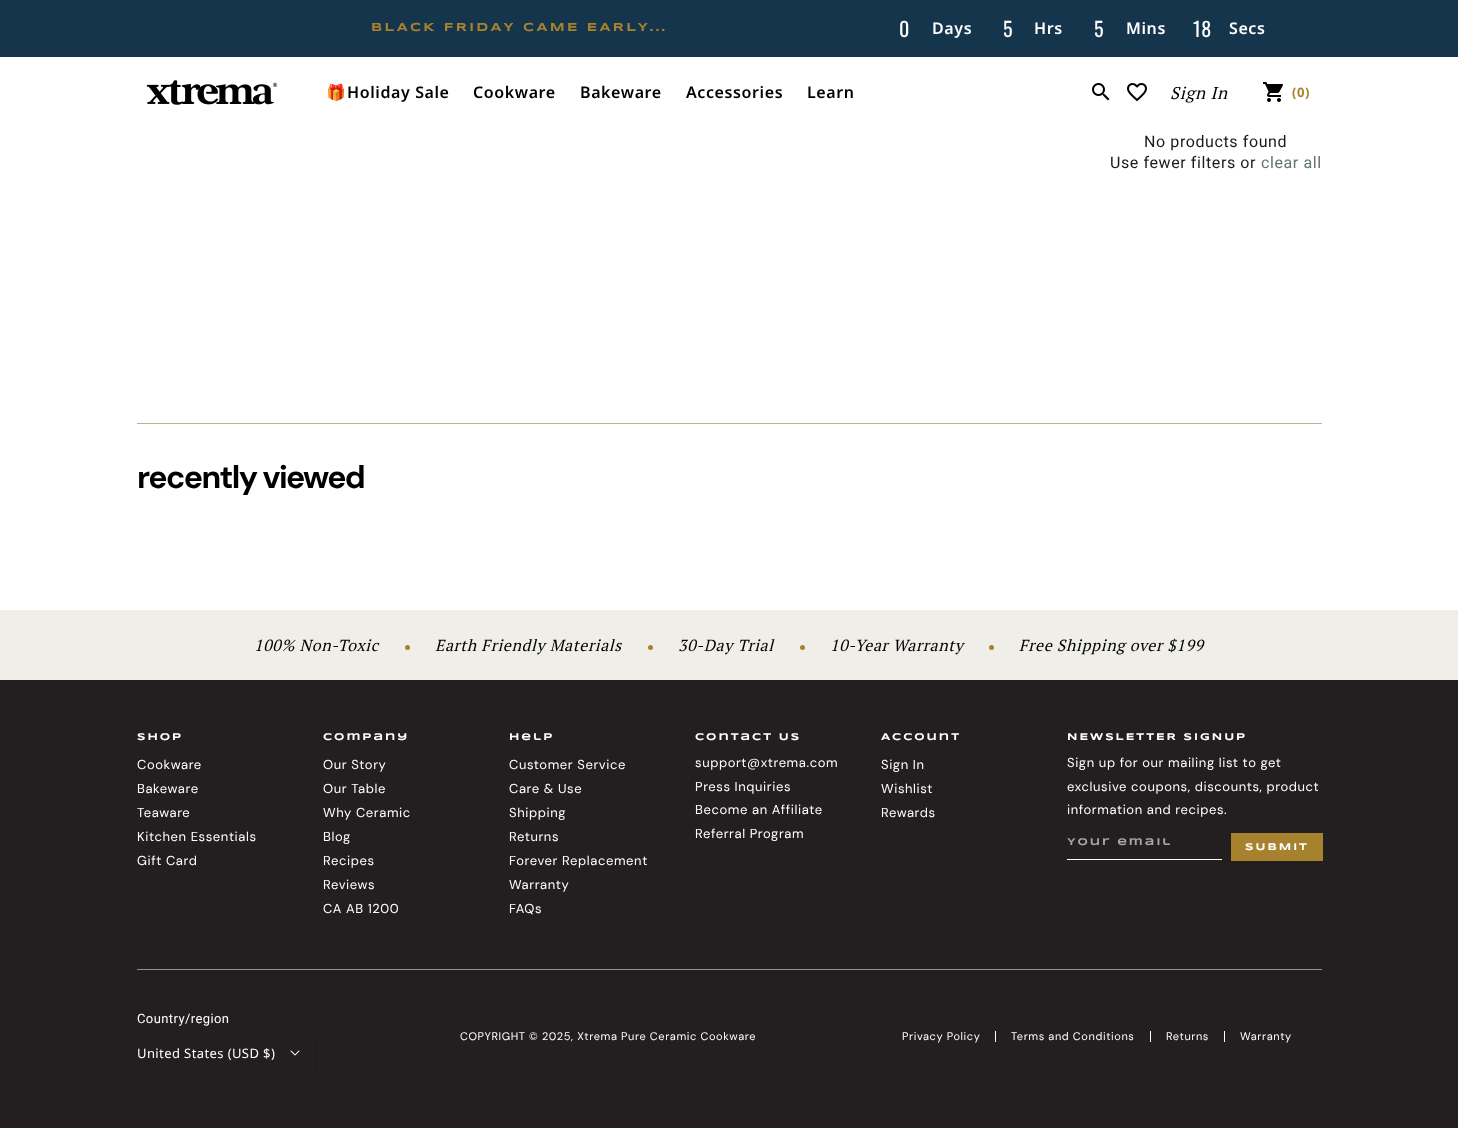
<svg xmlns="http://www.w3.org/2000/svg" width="1458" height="1128">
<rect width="100%" height="100%" fill="#fff"/>
<rect width="1458" height="57" fill="#14354c"/>
<text x="371" y="31" style="font-family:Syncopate;font-size:12px;font-weight:bold;letter-spacing:2.4px;fill:#a7822e">BLACK FRIDAY CAME EARLY...</text>
<text x="899" y="37" style="font-family:Oswald;font-size:20px;letter-spacing:0.6px;fill:#fff">0</text>
<text x="932" y="34" style="font-family:Noto Sans;font-size:16px;font-weight:600;letter-spacing:0.6px;fill:#fff">Days</text>
<text x="1003" y="37" style="font-family:Oswald;font-size:20px;letter-spacing:0.6px;fill:#fff">5</text>
<text x="1034" y="34" style="font-family:Noto Sans;font-size:16px;font-weight:600;letter-spacing:0.6px;fill:#fff">Hrs</text>
<text x="1094" y="37" style="font-family:Oswald;font-size:20px;letter-spacing:0.6px;fill:#fff">5</text>
<text x="1126" y="34" style="font-family:Noto Sans;font-size:16px;font-weight:600;letter-spacing:0.6px;fill:#fff">Mins</text>
<text x="1193" y="37" style="font-family:Oswald;font-size:20px;letter-spacing:0.6px;fill:#fff">18</text>
<text x="1229" y="34" style="font-family:Noto Sans;font-size:16px;font-weight:600;letter-spacing:0.6px;fill:#fff">Secs</text>
<image x="146" y="80" width="132" height="25" href="media/1.png"/>
<text x="326" y="98" style="font-family:Noto Color Emoji;font-size:16px;letter-spacing:0.6px;fill:#000">🎁</text>
<text x="347" y="98" style="font-family:Noto Sans;font-size:16px;font-weight:600;letter-spacing:0.6px;fill:#000">Holiday Sale</text>
<text x="473" y="98" style="font-family:Noto Sans;font-size:16px;font-weight:600;letter-spacing:0.6px;fill:#000">Cookware</text>
<text x="580" y="98" style="font-family:Noto Sans;font-size:16px;font-weight:600;letter-spacing:0.6px;fill:#000">Bakeware</text>
<text x="686" y="98" style="font-family:Noto Sans;font-size:16px;font-weight:600;letter-spacing:0.6px;fill:#000">Accessories</text>
<text x="807" y="98" style="font-family:Noto Sans;font-size:16px;font-weight:600;letter-spacing:0.6px;fill:#000">Learn</text>
<image x="1092" y="83" width="18" height="18" href="media/2.png"/>
<image x="1127" y="83" width="20" height="19" href="media/3.png"/>
<text x="1170" y="99" style="font-family:PT Serif;font-size:17px;font-style:italic;letter-spacing:0.6px;fill:#000">Sign In</text>
<image x="1263" y="82" width="20" height="20" href="media/4.png"/>
<text x="1292" y="97" style="font-family:Noto Sans;font-size:13px;font-weight:bold;letter-spacing:0.6px;fill:#a7822e">(0)</text>
<text x="1144" y="147" style="font-family:Roboto;font-size:16px;letter-spacing:0.6px;fill:#1a1b18">No products found</text>
<text x="1110" y="168" style="font-family:Roboto;font-size:16px;letter-spacing:0.6px;fill:#1a1b18">Use fewer filters or</text>
<text x="1261" y="168" style="font-family:Roboto;font-size:16px;letter-spacing:0.6px;fill:#607271">clear all</text>
<rect x="137" y="423" width="1185" height="1" fill="#bcaf96"/>
<text x="137" y="488" style="font-family:DM Sans;font-size:32px;font-weight:bold;letter-spacing:-1.6px;fill:#000">recently viewed</text>
<rect y="610" width="1458" height="70" fill="#efeee8"/>
<text x="254" y="651" style="font-family:PT Serif;font-size:16px;font-style:italic;letter-spacing:0.6px;fill:#000">100% Non-Toxic</text>
<circle cx="407.5" cy="647.5" r="2.5" fill="#a7822e"/>
<text x="435" y="651" style="font-family:PT Serif;font-size:16px;font-style:italic;letter-spacing:0.6px;fill:#000">Earth Friendly Materials</text>
<circle cx="650.5" cy="647.5" r="2.5" fill="#a7822e"/>
<text x="678" y="651" style="font-family:PT Serif;font-size:16px;font-style:italic;letter-spacing:0.6px;fill:#000">30-Day Trial</text>
<circle cx="802.5" cy="647.5" r="2.5" fill="#a7822e"/>
<text x="830" y="651" style="font-family:PT Serif;font-size:16px;font-style:italic;letter-spacing:0.6px;fill:#000">10-Year Warranty</text>
<circle cx="991.5" cy="647.5" r="2.5" fill="#a7822e"/>
<text x="1019" y="651" style="font-family:PT Serif;font-size:16px;font-style:italic;letter-spacing:0.6px;fill:#000">Free Shipping over $199</text>
<rect y="680" width="1458" height="448" fill="#231f20"/>
<text x="137" y="740" style="font-family:Syncopate;font-size:10px;font-weight:bold;letter-spacing:2px;fill:#fff">Shop</text>
<text x="137" y="769" style="font-family:DM Sans;font-size:13px;letter-spacing:0.6px;fill:#fff">Cookware</text>
<text x="137" y="793" style="font-family:DM Sans;font-size:13px;letter-spacing:0.6px;fill:#fff">Bakeware</text>
<text x="137" y="817" style="font-family:DM Sans;font-size:13px;letter-spacing:0.6px;fill:#fff">Teaware</text>
<text x="137" y="841" style="font-family:DM Sans;font-size:13px;letter-spacing:0.6px;fill:#fff">Kitchen Essentials</text>
<text x="137" y="865" style="font-family:DM Sans;font-size:13px;letter-spacing:0.6px;fill:#fff">Gift Card</text>
<text x="323" y="740" style="font-family:Syncopate;font-size:10px;font-weight:bold;letter-spacing:2px;fill:#fff">Company</text>
<text x="323" y="769" style="font-family:DM Sans;font-size:13px;letter-spacing:0.6px;fill:#fff">Our Story</text>
<text x="323" y="793" style="font-family:DM Sans;font-size:13px;letter-spacing:0.6px;fill:#fff">Our Table</text>
<text x="323" y="817" style="font-family:DM Sans;font-size:13px;letter-spacing:0.6px;fill:#fff">Why Ceramic</text>
<text x="323" y="841" style="font-family:DM Sans;font-size:13px;letter-spacing:0.6px;fill:#fff">Blog</text>
<text x="323" y="865" style="font-family:DM Sans;font-size:13px;letter-spacing:0.6px;fill:#fff">Recipes</text>
<text x="323" y="889" style="font-family:DM Sans;font-size:13px;letter-spacing:0.6px;fill:#fff">Reviews</text>
<text x="323" y="913" style="font-family:DM Sans;font-size:13px;letter-spacing:0.6px;fill:#fff">CA AB 1200</text>
<text x="509" y="740" style="font-family:Syncopate;font-size:10px;font-weight:bold;letter-spacing:2px;fill:#fff">Help</text>
<text x="509" y="769" style="font-family:DM Sans;font-size:13px;letter-spacing:0.6px;fill:#fff">Customer Service</text>
<text x="509" y="793" style="font-family:DM Sans;font-size:13px;letter-spacing:0.6px;fill:#fff">Care &amp; Use</text>
<text x="509" y="817" style="font-family:DM Sans;font-size:13px;letter-spacing:0.6px;fill:#fff">Shipping</text>
<text x="509" y="841" style="font-family:DM Sans;font-size:13px;letter-spacing:0.6px;fill:#fff">Returns</text>
<text x="509" y="865" style="font-family:DM Sans;font-size:13px;letter-spacing:0.6px;fill:#fff">Forever Replacement</text>
<text x="509" y="889" style="font-family:DM Sans;font-size:13px;letter-spacing:0.6px;fill:#fff">Warranty</text>
<text x="509" y="913" style="font-family:DM Sans;font-size:13px;letter-spacing:0.6px;fill:#fff">FAQs</text>
<text x="695" y="740" style="font-family:Syncopate;font-size:10px;font-weight:bold;letter-spacing:2px;fill:#fff">Contact Us</text>
<text x="695" y="767" style="font-family:DM Sans;font-size:13px;letter-spacing:0.6px;fill:#fff">support@xtrema.com</text>
<text x="695" y="791" style="font-family:DM Sans;font-size:13px;letter-spacing:0.6px;fill:#fff">Press Inquiries</text>
<text x="695" y="814" style="font-family:DM Sans;font-size:13px;letter-spacing:0.6px;fill:#fff">Become an Affiliate</text>
<text x="695" y="838" style="font-family:DM Sans;font-size:13px;letter-spacing:0.6px;fill:#fff">Referral Program</text>
<text x="881" y="740" style="font-family:Syncopate;font-size:10px;font-weight:bold;letter-spacing:2px;fill:#fff">Account</text>
<text x="881" y="769" style="font-family:DM Sans;font-size:13px;letter-spacing:0.6px;fill:#fff">Sign In</text>
<text x="881" y="793" style="font-family:DM Sans;font-size:13px;letter-spacing:0.6px;fill:#fff">Wishlist</text>
<text x="881" y="817" style="font-family:DM Sans;font-size:13px;letter-spacing:0.6px;fill:#fff">Rewards</text>
<text x="1067" y="740" style="font-family:Syncopate;font-size:10px;font-weight:bold;letter-spacing:2px;fill:#fff">NEWSLETTER SIGNUP</text>
<text x="1067" y="767" style="font-family:DM Sans;font-size:13px;letter-spacing:0.6px;fill:#fff">Sign up for our mailing list to get</text>
<text x="1067" y="791" style="font-family:DM Sans;font-size:13px;letter-spacing:0.6px;fill:#fff">exclusive coupons, discounts, product</text>
<text x="1067" y="814" style="font-family:DM Sans;font-size:13px;letter-spacing:0.6px;fill:#fff">information and recipes.</text>
<text x="1067" y="845" style="font-family:Syncopate;font-size:10px;font-weight:bold;letter-spacing:2px;fill:#a7a5a6">Your email</text>
<rect x="1067" y="859" width="155" height="1" fill="#fff"/>
<rect x="1231.5" y="833.5" width="91" height="27" fill="none" stroke="#a7822e"/>
<rect x="1232" y="834" width="90" height="26" fill="#a7822e"/>
<text x="1245" y="850" style="font-family:Syncopate;font-size:10px;font-weight:bold;letter-spacing:2px;fill:#fff">SUBMIT</text>
<rect x="137" y="969" width="1185" height="1" fill="#918f90"/>
<text x="137" y="1023" style="font-family:Roboto;font-size:13px;letter-spacing:0.4px;fill:#fff">Country/region</text>
<rect x="126.5" y="1033.5" width="189" height="41" fill="none" stroke="#1e1d1c"/>
<text x="137" y="1058" style="font-family:Noto Sans;font-size:13px;letter-spacing:0.4px;fill:#fff">United States (USD $)</text>
<image x="290" y="1050" width="10" height="6" href="media/5.png"/>
<text x="460" y="1040" style="font-family:DM Sans;font-size:11px;letter-spacing:0.6px;fill:#fff">COPYRIGHT © 2025, Xtrema Pure Ceramic Cookware</text>
<rect x="995" y="1031" width="1" height="11" fill="#fff"/>
<text x="902" y="1040" style="font-family:DM Sans;font-size:11px;letter-spacing:0.6px;fill:#fff">Privacy Policy</text>
<rect x="1150" y="1031" width="1" height="11" fill="#fff"/>
<text x="1011" y="1040" style="font-family:DM Sans;font-size:11px;letter-spacing:0.6px;fill:#fff">Terms and Conditions</text>
<rect x="1224" y="1031" width="1" height="11" fill="#fff"/>
<text x="1166" y="1040" style="font-family:DM Sans;font-size:11px;letter-spacing:0.6px;fill:#fff">Returns</text>
<text x="1240" y="1040" style="font-family:DM Sans;font-size:11px;letter-spacing:0.6px;fill:#fff">Warranty</text>
</svg>
